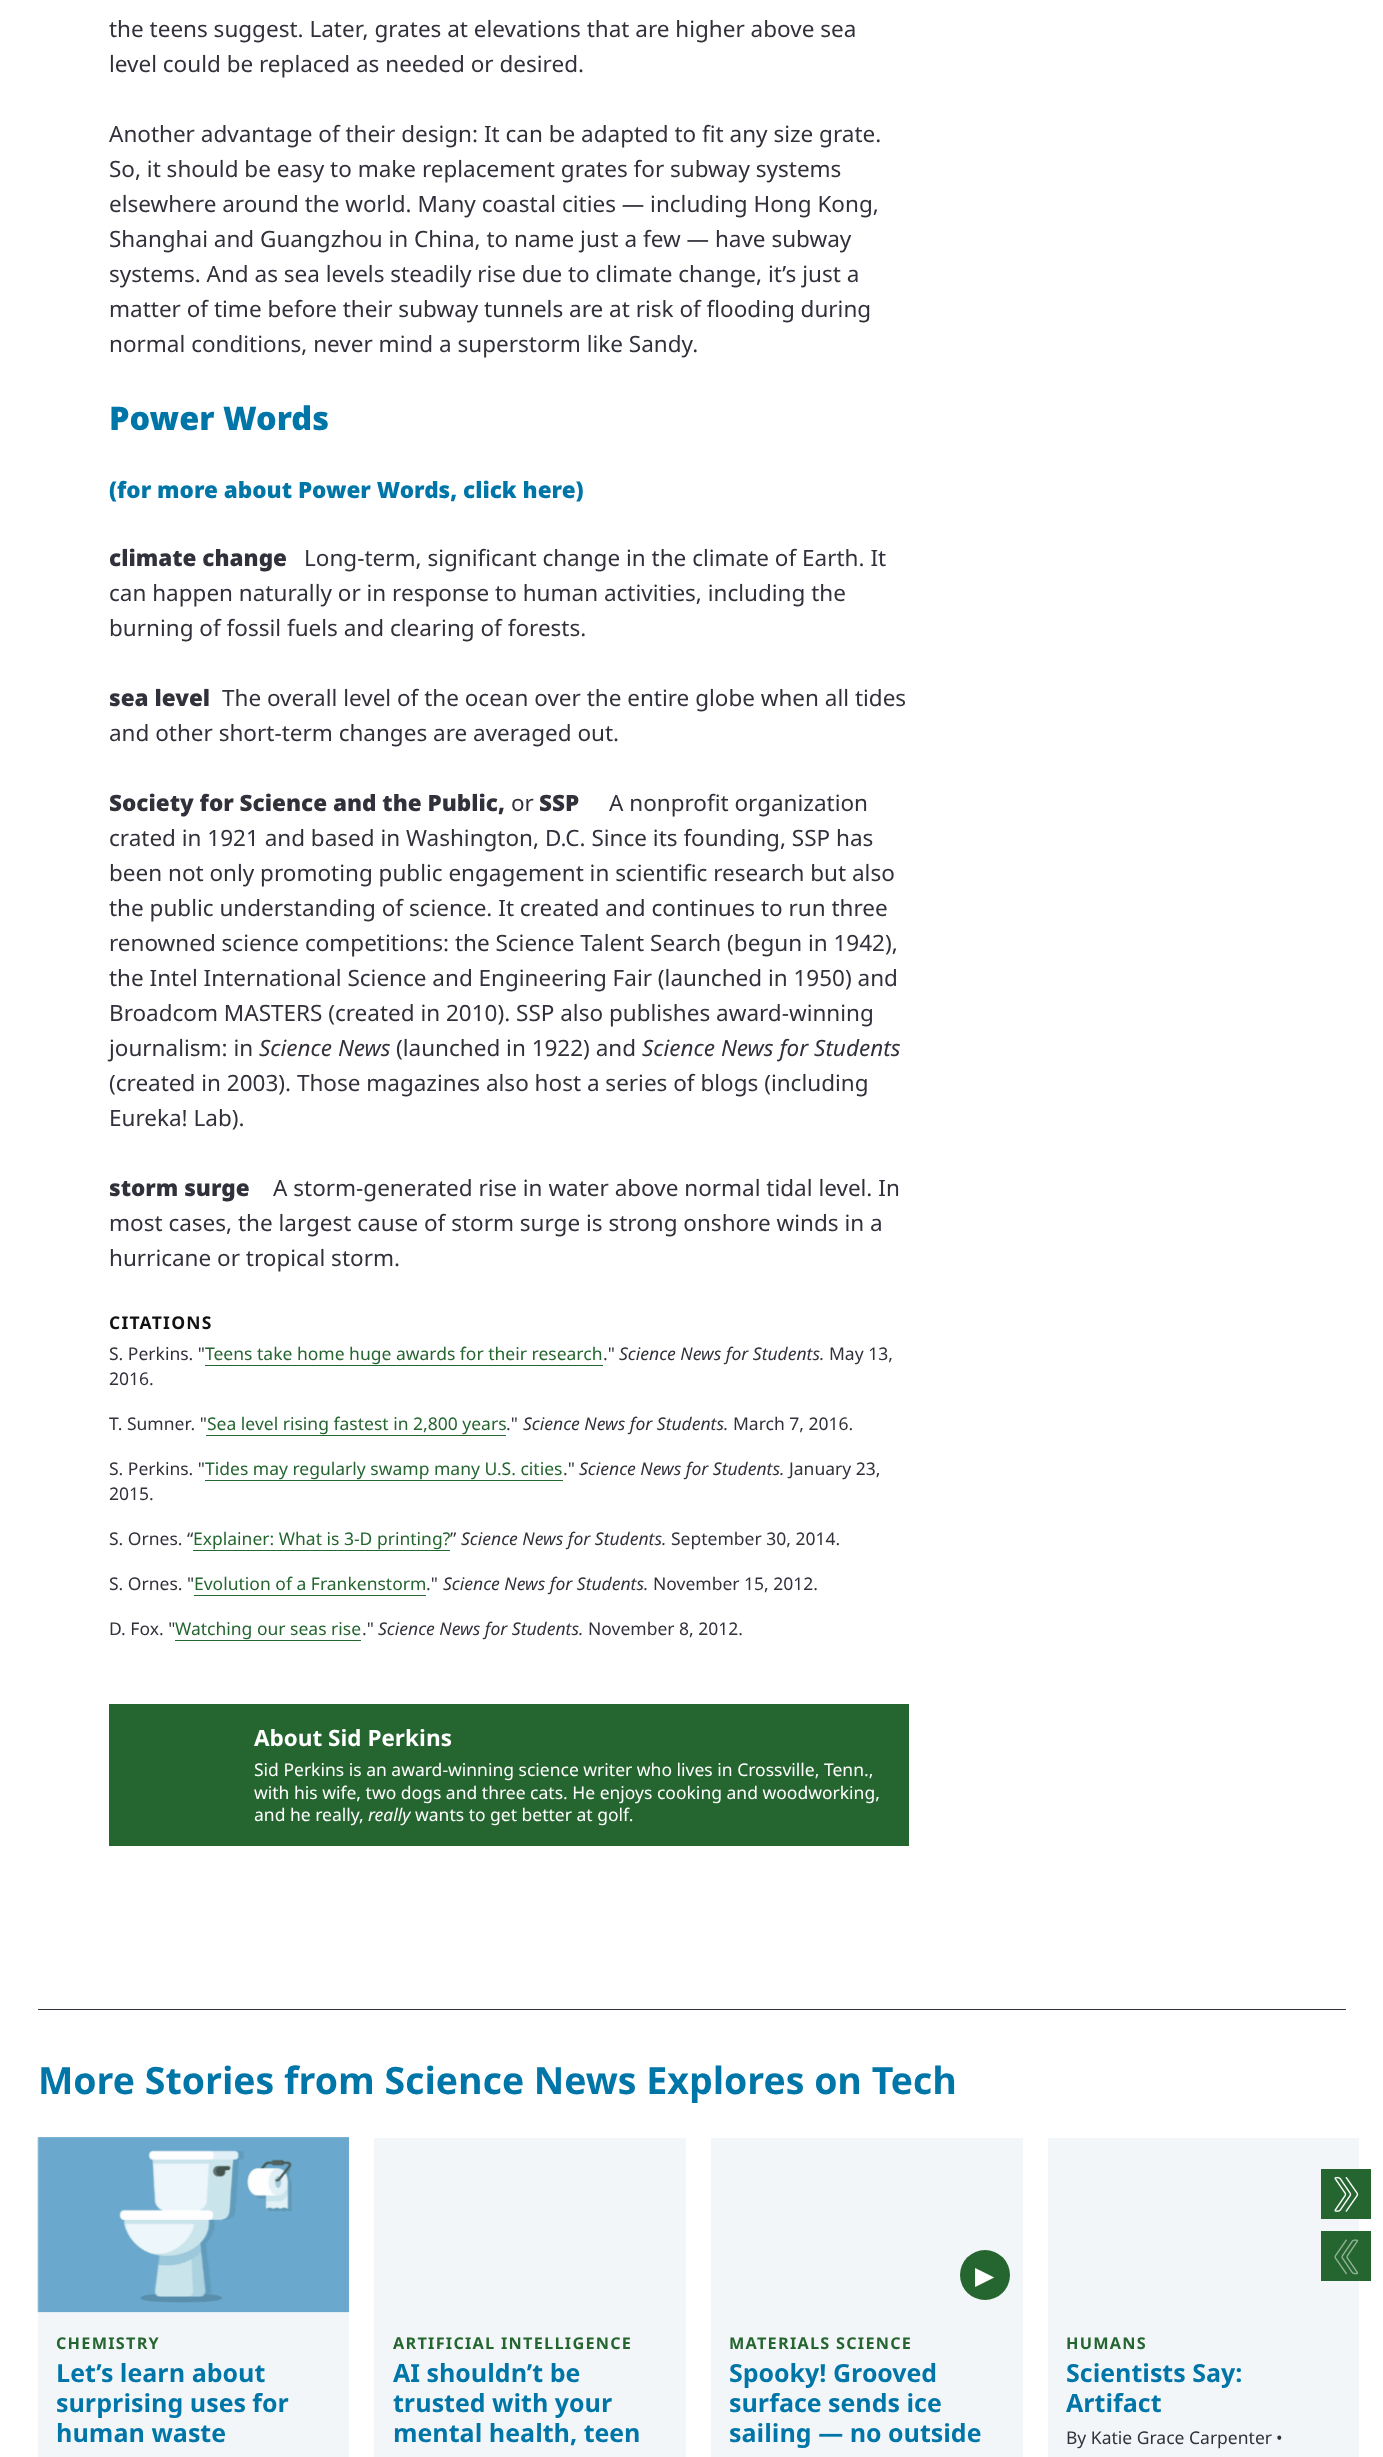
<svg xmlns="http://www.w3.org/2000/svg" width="1383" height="2457">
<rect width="100%" height="100%" fill="#fff"/>
<text x="109" y="37" style="font-family:Noto Sans;font-size:22.5px;fill:#31313b">the teens suggest. Later, grates at elevations that are higher above sea</text>
<text x="109" y="72" style="font-family:Noto Sans;font-size:22.5px;fill:#31313b">level could be replaced as needed or desired.</text>
<text x="109" y="142" style="font-family:Noto Sans;font-size:22.5px;fill:#31313b">Another advantage of their design: It can be adapted to fit any size grate.</text>
<text x="109" y="177" style="font-family:Noto Sans;font-size:22.5px;fill:#31313b">So, it should be easy to make replacement grates for subway systems</text>
<text x="109" y="212" style="font-family:Noto Sans;font-size:22.5px;fill:#31313b">elsewhere around the world. Many coastal cities — including Hong Kong,</text>
<text x="109" y="247" style="font-family:Noto Sans;font-size:22.5px;fill:#31313b">Shanghai and Guangzhou in China, to name just a few — have subway</text>
<text x="109" y="282" style="font-family:Noto Sans;font-size:22.5px;fill:#31313b">systems. And as sea levels steadily rise due to climate change, it’s just a</text>
<text x="109" y="317" style="font-family:Noto Sans;font-size:22.5px;fill:#31313b">matter of time before their subway tunnels are at risk of flooding during</text>
<text x="109" y="352" style="font-family:Noto Sans;font-size:22.5px;fill:#31313b">normal conditions, never mind a superstorm like Sandy.</text>
<text x="109" y="430" style="font-family:Noto Sans;font-size:32.5px;font-weight:900;fill:#0076a8">Power Words</text>
<text x="109" y="498" style="font-family:Noto Sans;font-size:22.5px;font-weight:900;fill:#0076a8">(for more about Power Words, click here)</text>
<text x="109" y="566" style="font-family:Noto Sans;font-size:22.5px;font-weight:900;fill:#31313b">climate change</text>
<text x="304" y="566" style="font-family:Noto Sans;font-size:22.5px;fill:#31313b">Long-term, significant change in the climate of Earth. It</text>
<text x="109" y="601" style="font-family:Noto Sans;font-size:22.5px;fill:#31313b">can happen naturally or in response to human activities, including the</text>
<text x="109" y="636" style="font-family:Noto Sans;font-size:22.5px;fill:#31313b">burning of fossil fuels and clearing of forests.</text>
<text x="109" y="706" style="font-family:Noto Sans;font-size:22.5px;font-weight:900;fill:#31313b">sea level</text>
<text x="222" y="706" style="font-family:Noto Sans;font-size:22.5px;fill:#31313b">The overall level of the ocean over the entire globe when all tides</text>
<text x="109" y="741" style="font-family:Noto Sans;font-size:22.5px;fill:#31313b">and other short-term changes are averaged out.</text>
<text x="109" y="811" style="font-family:Noto Sans;font-size:22.5px;font-weight:900;fill:#31313b">Society for Science and the Public,</text>
<text x="511" y="811" style="font-family:Noto Sans;font-size:22.5px;fill:#31313b">or</text>
<text x="539" y="811" style="font-family:Noto Sans;font-size:22.5px;font-weight:900;fill:#31313b">SSP</text>
<text x="609" y="811" style="font-family:Noto Sans;font-size:22.5px;fill:#31313b">A nonprofit organization</text>
<text x="109" y="846" style="font-family:Noto Sans;font-size:22.5px;fill:#31313b">crated in 1921 and based in Washington, D.C. Since its founding, SSP has</text>
<text x="109" y="881" style="font-family:Noto Sans;font-size:22.5px;fill:#31313b">been not only promoting public engagement in scientific research but also</text>
<text x="109" y="916" style="font-family:Noto Sans;font-size:22.5px;fill:#31313b">the public understanding of science. It created and continues to run three</text>
<text x="109" y="951" style="font-family:Noto Sans;font-size:22.5px;fill:#31313b">renowned science competitions: the Science Talent Search (begun in 1942),</text>
<text x="109" y="986" style="font-family:Noto Sans;font-size:22.5px;fill:#31313b">the Intel International Science and Engineering Fair (launched in 1950) and</text>
<text x="109" y="1021" style="font-family:Noto Sans;font-size:22.5px;fill:#31313b">Broadcom MASTERS (created in 2010). SSP also publishes award-winning</text>
<text x="109" y="1056" style="font-family:Noto Sans;font-size:22.5px;fill:#31313b">journalism: in</text>
<text x="259" y="1056" style="font-family:Noto Sans;font-size:22.5px;font-style:italic;fill:#31313b">Science News</text>
<text x="396" y="1056" style="font-family:Noto Sans;font-size:22.5px;fill:#31313b">(launched in 1922) and</text>
<text x="642" y="1056" style="font-family:Noto Sans;font-size:22.5px;font-style:italic;fill:#31313b">Science News for Students</text>
<text x="109" y="1091" style="font-family:Noto Sans;font-size:22.5px;fill:#31313b">(created in 2003). Those magazines also host a series of blogs (including</text>
<text x="109" y="1126" style="font-family:Noto Sans;font-size:22.5px;fill:#31313b">Eureka! Lab).</text>
<text x="109" y="1196" style="font-family:Noto Sans;font-size:22.5px;font-weight:900;fill:#31313b">storm surge</text>
<text x="273" y="1196" style="font-family:Noto Sans;font-size:22.5px;fill:#31313b">A storm-generated rise in water above normal tidal level. In</text>
<text x="109" y="1231" style="font-family:Noto Sans;font-size:22.5px;fill:#31313b">most cases, the largest cause of storm surge is strong onshore winds in a</text>
<text x="109" y="1266" style="font-family:Noto Sans;font-size:22.5px;fill:#31313b">hurricane or tropical storm.</text>
<text x="109" y="1329" style="font-family:Noto Sans;font-size:17.5px;font-weight:bold;letter-spacing:1.25px;fill:#121212">CITATIONS</text>
<text x="109" y="1360" style="font-family:Noto Sans;font-size:17.5px;fill:#31313b">S. Perkins. "</text>
<text x="205" y="1360" style="font-family:Noto Sans;font-size:17.5px;fill:#256530">Teens take home huge awards for their research</text>
<rect x="205" y="1365" width="398" height="1" fill="#256530"/>
<text x="603" y="1360" style="font-family:Noto Sans;font-size:17.5px;fill:#31313b">."</text>
<text x="619" y="1360" style="font-family:Noto Sans;font-size:17.5px;font-style:italic;fill:#31313b">Science News for Students.</text>
<text x="829" y="1360" style="font-family:Noto Sans;font-size:17.5px;fill:#31313b">May 13,</text>
<text x="109" y="1385" style="font-family:Noto Sans;font-size:17.5px;fill:#31313b">2016.</text>
<text x="109" y="1430" style="font-family:Noto Sans;font-size:17.5px;fill:#31313b">T. Sumner. "</text>
<text x="207" y="1430" style="font-family:Noto Sans;font-size:17.5px;fill:#256530">Sea level rising fastest in 2,800 years</text>
<rect x="206" y="1435" width="300" height="1" fill="#256530"/>
<text x="506" y="1430" style="font-family:Noto Sans;font-size:17.5px;fill:#31313b">."</text>
<text x="523" y="1430" style="font-family:Noto Sans;font-size:17.5px;font-style:italic;fill:#31313b">Science News for Students.</text>
<text x="733" y="1430" style="font-family:Noto Sans;font-size:17.5px;fill:#31313b">March 7, 2016.</text>
<text x="109" y="1475" style="font-family:Noto Sans;font-size:17.5px;fill:#31313b">S. Perkins. "</text>
<text x="205" y="1475" style="font-family:Noto Sans;font-size:17.5px;fill:#256530">Tides may regularly swamp many U.S. cities</text>
<rect x="205" y="1480" width="358" height="1" fill="#256530"/>
<text x="563" y="1475" style="font-family:Noto Sans;font-size:17.5px;fill:#31313b">."</text>
<text x="579" y="1475" style="font-family:Noto Sans;font-size:17.5px;font-style:italic;fill:#31313b">Science News for Students.</text>
<text x="789" y="1475" style="font-family:Noto Sans;font-size:17.5px;fill:#31313b">January 23,</text>
<text x="109" y="1500" style="font-family:Noto Sans;font-size:17.5px;fill:#31313b">2015.</text>
<text x="109" y="1545" style="font-family:Noto Sans;font-size:17.5px;fill:#31313b">S. Ornes. “</text>
<text x="193" y="1545" style="font-family:Noto Sans;font-size:17.5px;fill:#256530">Explainer: What is 3-D printing?</text>
<rect x="193" y="1550" width="257" height="1" fill="#256530"/>
<text x="450" y="1545" style="font-family:Noto Sans;font-size:17.5px;fill:#31313b">”</text>
<text x="461" y="1545" style="font-family:Noto Sans;font-size:17.5px;font-style:italic;fill:#31313b">Science News for Students.</text>
<text x="671" y="1545" style="font-family:Noto Sans;font-size:17.5px;fill:#31313b">September 30, 2014.</text>
<text x="109" y="1590" style="font-family:Noto Sans;font-size:17.5px;fill:#31313b">S. Ornes. "</text>
<text x="194" y="1590" style="font-family:Noto Sans;font-size:17.5px;fill:#256530">Evolution of a Frankenstorm</text>
<rect x="194" y="1595" width="232" height="1" fill="#256530"/>
<text x="426" y="1590" style="font-family:Noto Sans;font-size:17.5px;fill:#31313b">."</text>
<text x="443" y="1590" style="font-family:Noto Sans;font-size:17.5px;font-style:italic;fill:#31313b">Science News for Students.</text>
<text x="653" y="1590" style="font-family:Noto Sans;font-size:17.5px;fill:#31313b">November 15, 2012.</text>
<text x="109" y="1635" style="font-family:Noto Sans;font-size:17.5px;fill:#31313b">D. Fox. "</text>
<text x="175" y="1635" style="font-family:Noto Sans;font-size:17.5px;fill:#256530">Watching our seas rise</text>
<rect x="175" y="1640" width="186" height="1" fill="#256530"/>
<text x="362" y="1635" style="font-family:Noto Sans;font-size:17.5px;fill:#31313b">."</text>
<text x="378" y="1635" style="font-family:Noto Sans;font-size:17.5px;font-style:italic;fill:#31313b">Science News for Students.</text>
<text x="588" y="1635" style="font-family:Noto Sans;font-size:17.5px;fill:#31313b">November 8, 2012.</text>
<rect x="109" y="1704" width="800" height="142" fill="#256530"/>
<text x="254" y="1746" style="font-family:Noto Sans;font-size:22.5px;font-weight:bold;fill:#fff">About Sid Perkins</text>
<text x="254" y="1776" style="font-family:Noto Sans;font-size:17.5px;fill:#fff">Sid Perkins is an award-winning science writer who lives in Crossville, Tenn.,</text>
<text x="254" y="1799" style="font-family:Noto Sans;font-size:17.5px;fill:#fff">with his wife, two dogs and three cats. He enjoys cooking and woodworking,</text>
<text x="254" y="1821" style="font-family:Noto Sans;font-size:17.5px;fill:#fff">and he really,</text>
<text x="368" y="1821" style="font-family:Noto Sans;font-size:17.5px;font-style:italic;fill:#fff">really</text>
<text x="415" y="1821" style="font-family:Noto Sans;font-size:17.5px;fill:#fff">wants to get better at golf.</text>
<rect x="38" y="2009" width="1308" height="1" fill="#31313b"/>
<text x="38" y="2094" style="font-family:Noto Sans;font-size:37.5px;font-weight:bold;fill:#0076a8">More Stories from Science News Explores on Tech</text>
<rect x="1048" y="2138" width="311" height="319" fill="#f3f6f9"/>
<rect x="1321" y="2169" width="50" height="50" fill="#256530"/>
<image x="1334" y="2176" width="25" height="36" href="media/1.png"/>
<rect x="1321" y="2231" width="50" height="50" fill="#256530"/>
<image x="1334" y="2239" width="25" height="36" href="media/2.png"/>
<rect x="38" y="2138" width="311" height="319" fill="#f3f6f9"/>
<image x="37" y="2137" width="312" height="176" href="media/3.png"/>
<text x="56" y="2349" style="font-family:Noto Sans;font-size:16.25px;font-weight:bold;letter-spacing:1.25px;fill:#256530">CHEMISTRY</text>
<text x="56" y="2382" style="font-family:Noto Sans;font-size:25px;font-weight:bold;fill:#0076a8">Let’s learn about</text>
<text x="56" y="2412" style="font-family:Noto Sans;font-size:25px;font-weight:bold;fill:#0076a8">surprising uses for</text>
<text x="56" y="2442" style="font-family:Noto Sans;font-size:25px;font-weight:bold;fill:#0076a8">human waste</text>
<rect x="374" y="2138" width="312" height="319" fill="#f3f6f9"/>
<text x="393" y="2349" style="font-family:Noto Sans;font-size:16.25px;font-weight:bold;letter-spacing:1.25px;fill:#256530">ARTIFICIAL INTELLIGENCE</text>
<text x="393" y="2382" style="font-family:Noto Sans;font-size:25px;font-weight:bold;fill:#0076a8">AI shouldn’t be</text>
<text x="393" y="2412" style="font-family:Noto Sans;font-size:25px;font-weight:bold;fill:#0076a8">trusted with your</text>
<text x="393" y="2442" style="font-family:Noto Sans;font-size:25px;font-weight:bold;fill:#0076a8">mental health, teen</text>
<rect x="711" y="2138" width="312" height="319" fill="#f3f6f9"/>
<circle cx="985" cy="2275" r="25" fill="#256530"/>
<text x="975" y="2284" style="font-family:DejaVu Sans;font-size:25px;fill:#fff">▶</text>
<text x="729" y="2349" style="font-family:Noto Sans;font-size:16.25px;font-weight:bold;letter-spacing:1.25px;fill:#256530">MATERIALS SCIENCE</text>
<text x="729" y="2382" style="font-family:Noto Sans;font-size:25px;font-weight:bold;fill:#0076a8">Spooky! Grooved</text>
<text x="729" y="2412" style="font-family:Noto Sans;font-size:25px;font-weight:bold;fill:#0076a8">surface sends ice</text>
<text x="729" y="2442" style="font-family:Noto Sans;font-size:25px;font-weight:bold;fill:#0076a8">sailing — no outside</text>
<text x="1066" y="2349" style="font-family:Noto Sans;font-size:16.25px;font-weight:bold;letter-spacing:1.25px;fill:#256530">HUMANS</text>
<text x="1066" y="2382" style="font-family:Noto Sans;font-size:25px;font-weight:bold;fill:#0076a8">Scientists Say:</text>
<text x="1066" y="2412" style="font-family:Noto Sans;font-size:25px;font-weight:bold;fill:#0076a8">Artifact</text>
<text x="1066" y="2444" style="font-family:Noto Sans;font-size:17.5px;fill:#31313b">By Katie Grace Carpenter</text>
<text x="1276" y="2444" style="font-family:Noto Sans;font-size:17.5px;fill:#31313b">•</text>
</svg>
